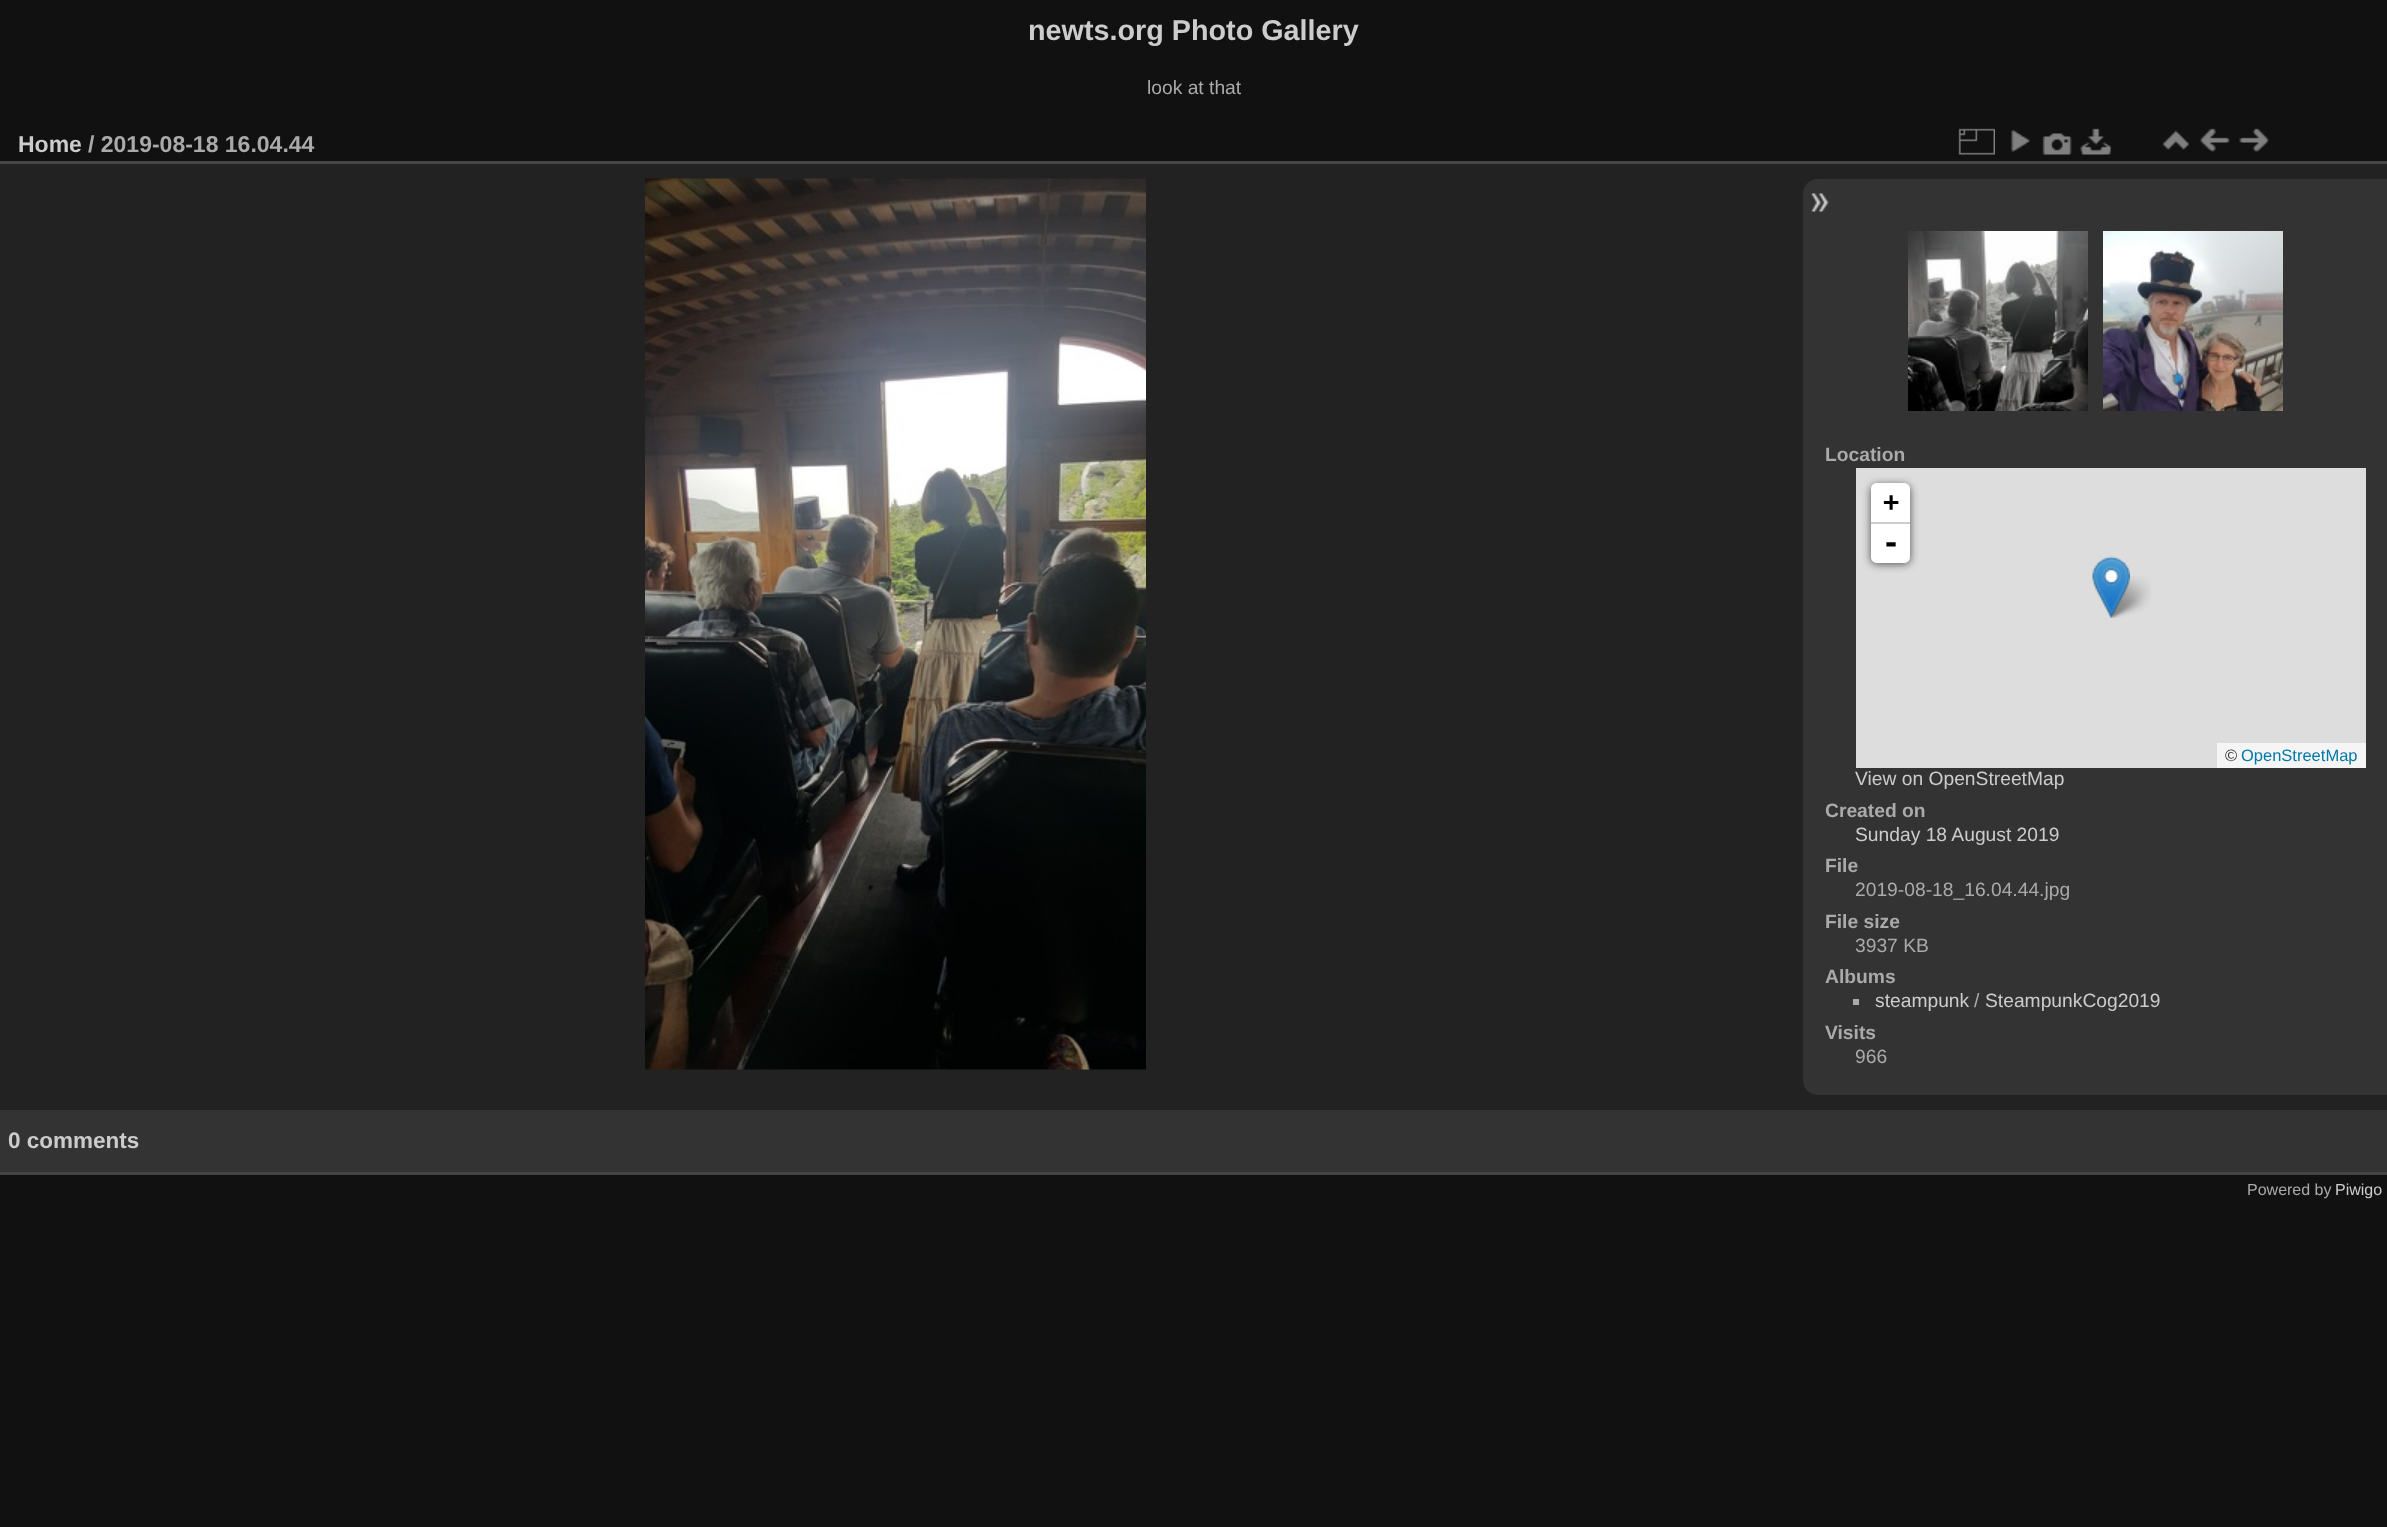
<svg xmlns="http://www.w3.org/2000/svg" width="2387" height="1527">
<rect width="100%" height="100%" fill="#111"/>
<text x="1028" y="40" style="font-family:Liberation Sans;font-size:28.75px;font-weight:bold;fill:#ccc">newts.org Photo Gallery</text>
<text x="1147" y="94" style="font-family:Liberation Sans;font-size:19.25px;fill:#aaa">look at that</text>
<rect y="164" width="2387" height="946" fill="#222"/>
<rect y="1172" width="2387" height="3" fill="#444"/>
<rect y="161" width="2387" height="3" fill="#444"/>
<text x="18" y="152" style="font-family:Liberation Sans;font-size:23px;font-weight:bold;fill:#ccc">Home</text>
<text x="88" y="152" style="font-family:Liberation Sans;font-size:23px;font-weight:bold;fill:#aaa">/ 2019-08-18 16.04.44</text>
<image x="1958" y="128" width="37" height="27" href="media/1.png"/>
<image x="2011" y="130" width="19" height="22" href="media/2.png"/>
<image x="2042" y="133" width="30" height="22" href="media/3.png"/>
<image x="2080" y="128" width="32" height="27" href="media/4.png"/>
<image x="2162" y="130" width="27" height="21" href="media/5.png"/>
<image x="2200" y="128" width="30" height="24" href="media/6.png"/>
<image x="2239" y="128" width="30" height="24" href="media/7.png"/>
<image x="645" y="178" width="501" height="892" href="media/8.png"/>
<path d="M1818 179h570v916h-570c-8.5 0-15-6.5-15-15v-886c0-8.5 6.5-15 15-15z" fill="#333"/>
<image x="1811" y="193" width="18" height="19" href="media/9.png"/>
<image x="1908" y="231" width="180" height="180" href="media/10.png"/>
<image x="2103" y="231" width="180" height="180" href="media/11.png"/>
<text x="1825" y="461" style="font-family:Liberation Sans;font-size:19.25px;font-weight:bold;fill:#aaa">Location</text>
<rect x="1856" y="468" width="510" height="300" fill="#ddd"/>
<rect x="1871" y="485" width="39" height="79" rx="6" fill="#000000a6" filter="blur(4px)"/>
<path d="M1877 483h27c3.5 0 6 2.5 6 6v35h-39v-35c0-3.5 2.5-6 6-6z" fill="#fff"/>
<rect x="1871" y="522" width="39" height="2" fill="#ccc"/>
<text x="1883" y="511" style="font-family:DejaVu Sans Mono;font-size:27px;font-weight:bold;fill:#000">+</text>
<path d="M1871 524h39v33c0 3.5-2.5 6-6 6h-27c-3.5 0-6-2.5-6-6z" fill="#fff"/>
<text x="1882" y="553" style="font-family:DejaVu Sans Mono;font-size:30px;font-weight:bold;fill:#000">-</text>
<rect x="2217" y="743" width="149" height="25" fill="#f5f5f5"/>
<text x="2225" y="761" style="font-family:Liberation Sans;font-size:16.5px;fill:#333">©</text>
<text x="2241" y="761" style="font-family:Liberation Sans;font-size:16.5px;fill:#0078a8">OpenStreetMap</text>
<image x="2106" y="576" width="45" height="42" href="media/13.png"/>
<image x="2092" y="556" width="38" height="62" href="media/12.png"/>
<text x="1855" y="785" style="font-family:Liberation Sans;font-size:19.25px;fill:#ccc">View on OpenStreetMap</text>
<text x="1825" y="817" style="font-family:Liberation Sans;font-size:19.25px;font-weight:bold;fill:#aaa">Created on</text>
<text x="1855" y="841" style="font-family:Liberation Sans;font-size:19.25px;fill:#ccc">Sunday 18 August 2019</text>
<text x="1825" y="872" style="font-family:Liberation Sans;font-size:19.25px;font-weight:bold;fill:#aaa">File</text>
<text x="1855" y="896" style="font-family:Liberation Sans;font-size:19.25px;fill:#aaa">2019-08-18_16.04.44.jpg</text>
<text x="1825" y="928" style="font-family:Liberation Sans;font-size:19.25px;font-weight:bold;fill:#aaa">File size</text>
<text x="1855" y="952" style="font-family:Liberation Sans;font-size:19.25px;fill:#aaa">3937 KB</text>
<text x="1825" y="983" style="font-family:Liberation Sans;font-size:19.25px;font-weight:bold;fill:#aaa">Albums</text>
<rect x="1853" y="999" width="6" height="6" fill="#aaa"/>
<text x="1875" y="1007" style="font-family:Liberation Sans;font-size:19.25px;fill:#ccc">steampunk</text>
<text x="1974" y="1007" style="font-family:Liberation Sans;font-size:19.25px;fill:#aaa">/</text>
<text x="1985" y="1007" style="font-family:Liberation Sans;font-size:19.25px;fill:#ccc">SteampunkCog2019</text>
<text x="1825" y="1039" style="font-family:Liberation Sans;font-size:19.25px;font-weight:bold;fill:#aaa">Visits</text>
<text x="1855" y="1063" style="font-family:Liberation Sans;font-size:19.25px;fill:#aaa">966</text>
<rect y="1110" width="2387" height="62" fill="#333"/>
<text x="8" y="1148" style="font-family:Liberation Sans;font-size:22.5px;font-weight:bold;fill:#ccc">0 comments</text>
<text x="2247" y="1195" style="font-family:Liberation Sans;font-size:16px;fill:#aaa">Powered by</text>
<text x="2335" y="1195" style="font-family:Liberation Sans;font-size:16px;fill:#ccc">Piwigo</text>
</svg>
